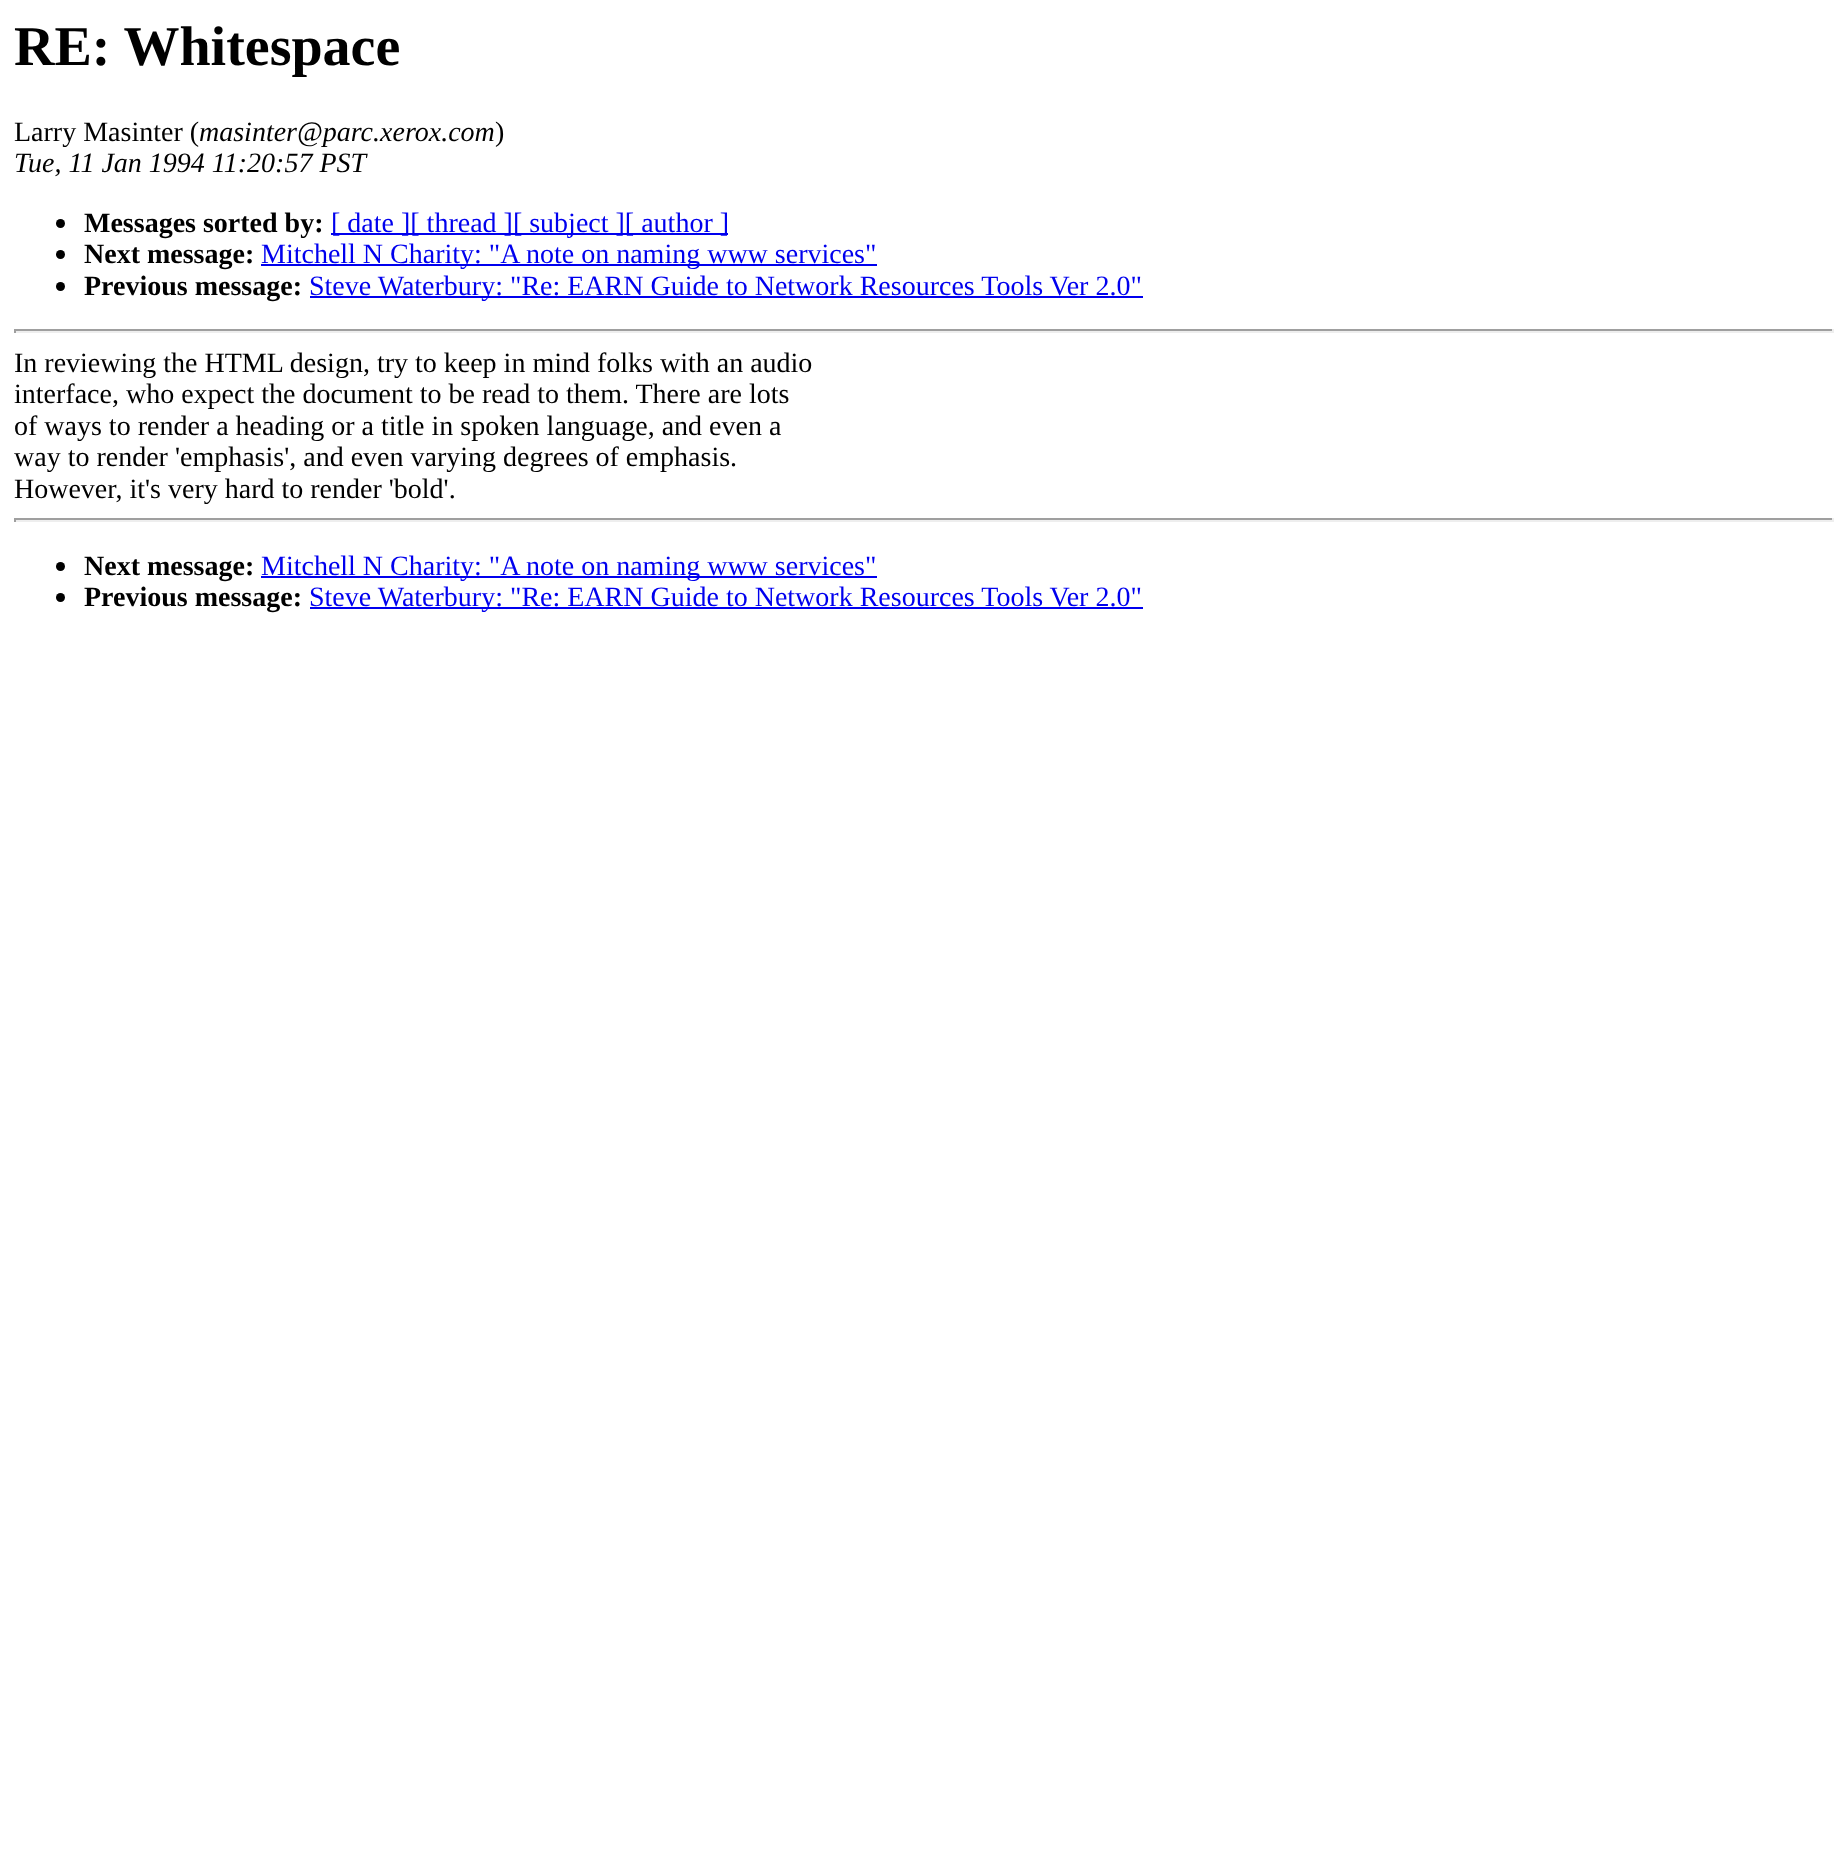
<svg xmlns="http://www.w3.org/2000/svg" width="1848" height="1850">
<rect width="100%" height="100%" fill="#fff"/>
<text x="14" y="65" style="font-family:Liberation Serif;font-size:56px;font-weight:bold;fill:#000">RE: Whitespace</text>
<text x="14" y="141" style="font-family:Liberation Serif;font-size:28px;fill:#000">Larry Masinter (</text>
<text x="199" y="141" style="font-family:Liberation Serif;font-size:28px;font-style:italic;fill:#000">masinter@parc.xerox.com</text>
<text x="495" y="141" style="font-family:Liberation Serif;font-size:28px;fill:#000">)</text>
<text x="14" y="172" style="font-family:Liberation Serif;font-size:28px;font-style:italic;fill:#000">Tue, 11 Jan 1994 11:20:57 PST</text>
<circle cx="60.5" cy="223.5" r="4.5" fill="#000"/>
<text x="84" y="232" style="font-family:Liberation Serif;font-size:28px;font-weight:bold;fill:#000">Messages sorted by:</text>
<rect x="331" y="233" width="397" height="2" fill="#00e"/>
<text x="331" y="232" style="font-family:Liberation Serif;font-size:28px;fill:#00e">[ date ][ thread ][ subject ][ author ]</text>
<circle cx="60.5" cy="254.5" r="4.5" fill="#000"/>
<text x="84" y="263" style="font-family:Liberation Serif;font-size:28px;font-weight:bold;fill:#000">Next message:</text>
<rect x="261" y="264" width="616" height="2" fill="#00e"/>
<text x="261" y="263" style="font-family:Liberation Serif;font-size:28px;fill:#00e">Mitchell N Charity: "A note on naming www services"</text>
<circle cx="60.5" cy="286.5" r="4.5" fill="#000"/>
<text x="84" y="295" style="font-family:Liberation Serif;font-size:28px;font-weight:bold;fill:#000">Previous message:</text>
<rect x="310" y="296" width="833" height="2" fill="#00e"/>
<text x="309" y="295" style="font-family:Liberation Serif;font-size:28px;fill:#00e">Steve Waterbury: "Re: EARN Guide to Network Resources Tools Ver 2.0"</text>
<rect x="14" y="329" width="1820" height="2" fill="#9f9f9f"/>
<rect x="1832" y="329" width="2" height="4" fill="#eee"/>
<rect x="14" y="331" width="1820" height="2" fill="#eee"/>
<rect x="14" y="329" width="2" height="4" fill="#9f9f9f"/>
<text x="14" y="372" style="font-family:Liberation Serif;font-size:28px;fill:#000">In reviewing the HTML design, try to keep in mind folks with an audio</text>
<text x="14" y="403" style="font-family:Liberation Serif;font-size:28px;fill:#000">interface, who expect the document to be read to them. There are lots</text>
<text x="14" y="435" style="font-family:Liberation Serif;font-size:28px;fill:#000">of ways to render a heading or a title in spoken language, and even a</text>
<text x="14" y="466" style="font-family:Liberation Serif;font-size:28px;fill:#000">way to render 'emphasis', and even varying degrees of emphasis.</text>
<text x="14" y="498" style="font-family:Liberation Serif;font-size:28px;fill:#000">However, it's very hard to render 'bold'.</text>
<rect x="14" y="518" width="1820" height="2" fill="#9f9f9f"/>
<rect x="1832" y="518" width="2" height="4" fill="#eee"/>
<rect x="14" y="520" width="1820" height="2" fill="#eee"/>
<rect x="14" y="518" width="2" height="4" fill="#9f9f9f"/>
<circle cx="60.5" cy="566.5" r="4.5" fill="#000"/>
<text x="84" y="575" style="font-family:Liberation Serif;font-size:28px;font-weight:bold;fill:#000">Next message:</text>
<rect x="261" y="576" width="616" height="2" fill="#00e"/>
<text x="261" y="575" style="font-family:Liberation Serif;font-size:28px;fill:#00e">Mitchell N Charity: "A note on naming www services"</text>
<circle cx="60.5" cy="597.5" r="4.5" fill="#000"/>
<text x="84" y="606" style="font-family:Liberation Serif;font-size:28px;font-weight:bold;fill:#000">Previous message:</text>
<rect x="310" y="607" width="833" height="2" fill="#00e"/>
<text x="309" y="606" style="font-family:Liberation Serif;font-size:28px;fill:#00e">Steve Waterbury: "Re: EARN Guide to Network Resources Tools Ver 2.0"</text>
</svg>
